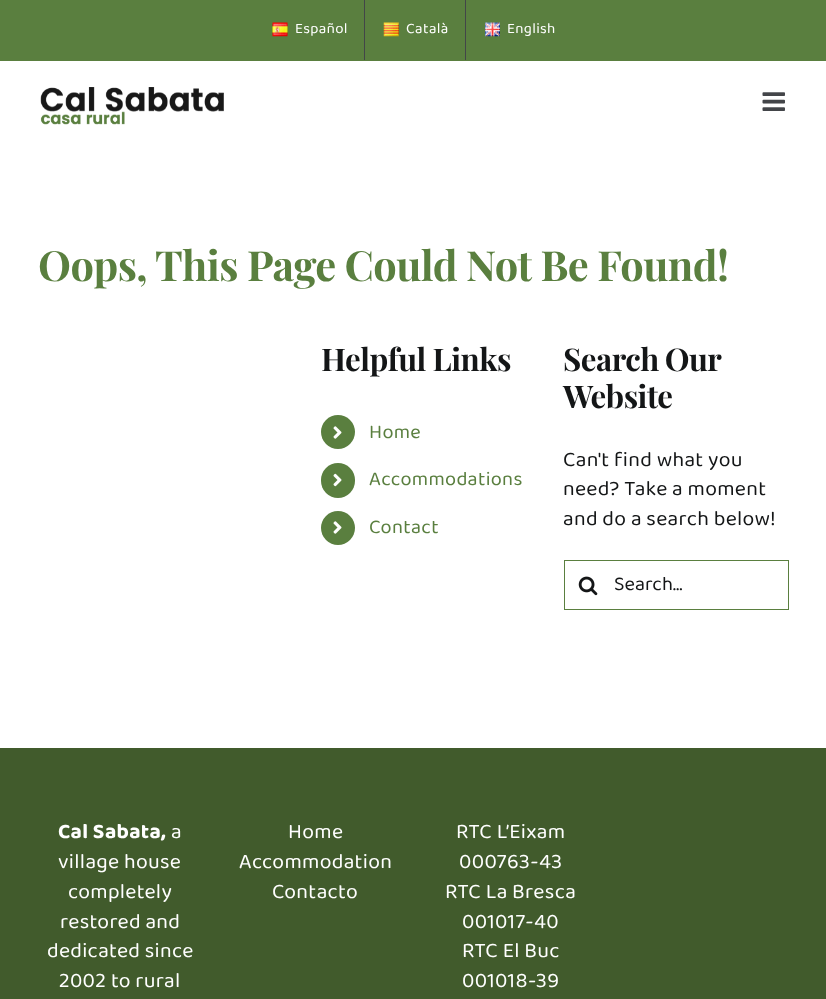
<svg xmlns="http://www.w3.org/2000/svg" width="826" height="999">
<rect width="100%" height="100%" fill="#fff"/>
<rect width="826" height="61" fill="#5a7f3f"/>
<image x="272" y="22" width="16" height="15" href="media/1.png"/>
<text x="295" y="33" style="font-family:'Baloo Paaji 2';font-size:15px;letter-spacing:0.3px;fill:#fff">Español</text>
<rect x="364" width="1" height="60" fill="#434549"/>
<image x="383" y="22" width="16" height="15" href="media/2.png"/>
<text x="406" y="33" style="font-family:'Baloo Paaji 2';font-size:15px;letter-spacing:0.3px;fill:#fff">Català</text>
<rect x="465" width="1" height="60" fill="#434549"/>
<image x="485" y="22" width="15" height="15" href="media/3.png"/>
<text x="507" y="33" style="font-family:'Baloo Paaji 2';font-size:15px;letter-spacing:0.3px;fill:#fff">English</text>
<image x="40" y="87" width="184" height="38" href="media/4.png"/>
<image x="762" y="92" width="23" height="19" href="media/5.png"/>
<text x="38" y="281" style="font-family:Playfair Display;font-size:41.6px;font-weight:bold;letter-spacing:-0.6px;fill:#5a7f3f">Oops, This Page Could Not Be Found!</text>
<text x="321" y="371" style="font-family:Playfair Display;font-size:31.25px;font-weight:bold;letter-spacing:-0.5px;fill:#141617">Helpful Links</text>
<circle cx="338" cy="432" r="17" fill="#5a7f3f"/>
<image x="333" y="426" width="9" height="13" href="media/6.png"/>
<text x="369" y="438" style="font-family:'Baloo Paaji 2';font-size:20px;letter-spacing:0.3px;fill:#5a7f3f">Home</text>
<rect x="321" y="463" width="34" height="35" rx="17" fill="#5a7f3f"/>
<image x="333" y="473" width="9" height="14" href="media/7.png"/>
<text x="369" y="485" style="font-family:'Baloo Paaji 2';font-size:20px;letter-spacing:0.3px;fill:#5a7f3f">Accommodations</text>
<circle cx="338" cy="528" r="17" fill="#5a7f3f"/>
<image x="333" y="521" width="9" height="13" href="media/6.png"/>
<text x="369" y="533" style="font-family:'Baloo Paaji 2';font-size:20px;letter-spacing:0.3px;fill:#5a7f3f">Contact</text>
<text x="563" y="371" word-spacing="-1" style="font-family:Playfair Display;font-size:31.25px;font-weight:bold;letter-spacing:-0.5px;fill:#141617">Search Our</text>
<text x="563" y="408" style="font-family:Playfair Display;font-size:31.25px;font-weight:bold;letter-spacing:-0.5px;fill:#141617">Website</text>
<text x="563" y="466" style="font-family:'Baloo Paaji 2';font-size:21.25px;letter-spacing:0.3px;fill:#141617">Can't find what you</text>
<text x="563" y="495" style="font-family:'Baloo Paaji 2';font-size:21.25px;letter-spacing:0.3px;fill:#141617">need? Take a moment</text>
<text x="563" y="525" style="font-family:'Baloo Paaji 2';font-size:21.25px;letter-spacing:0.3px;fill:#141617">and do a search below!</text>
<rect x="564.5" y="560.5" width="224" height="49" fill="none" stroke="#5a7f3f"/>
<image x="578" y="576" width="20" height="20" href="media/8.png"/>
<text x="614" y="590" style="font-family:'Baloo Paaji 2';font-size:20px;fill:#141617">Search...</text>
<rect y="748" width="826" height="251" fill="#415b2c"/>
<text x="58" y="838" style="font-family:'Baloo Paaji 2';font-size:21.25px;font-weight:bold;letter-spacing:0.3px;fill:#fff">Cal Sabata,</text>
<text x="171" y="838" style="font-family:'Baloo Paaji 2';font-size:21.25px;letter-spacing:0.3px;fill:#fff">a</text>
<text x="58" y="868" style="font-family:'Baloo Paaji 2';font-size:21.25px;letter-spacing:0.3px;fill:#fff">village house</text>
<text x="68" y="898" style="font-family:'Baloo Paaji 2';font-size:21.25px;letter-spacing:0.3px;fill:#fff">completely</text>
<text x="60" y="928" style="font-family:'Baloo Paaji 2';font-size:21.25px;letter-spacing:0.3px;fill:#fff">restored and</text>
<text x="47" y="957" style="font-family:'Baloo Paaji 2';font-size:21.25px;letter-spacing:0.3px;fill:#fff">dedicated since</text>
<text x="59" y="987" style="font-family:'Baloo Paaji 2';font-size:21.25px;letter-spacing:0.3px;fill:#fff">2002 to rural</text>
<text x="288" y="838" style="font-family:'Baloo Paaji 2';font-size:21.25px;letter-spacing:0.3px;fill:#fff">Home</text>
<text x="239" y="868" style="font-family:'Baloo Paaji 2';font-size:21.25px;letter-spacing:0.3px;fill:#fff">Accommodation</text>
<text x="272" y="898" style="font-family:'Baloo Paaji 2';font-size:21.25px;letter-spacing:0.3px;fill:#fff">Contacto</text>
<text x="456" y="838" style="font-family:'Baloo Paaji 2';font-size:21.25px;letter-spacing:0.3px;fill:#fff">RTC L’Eixam</text>
<text x="459" y="868" style="font-family:'Baloo Paaji 2';font-size:21.25px;letter-spacing:0.3px;fill:#fff">000763-43</text>
<text x="445" y="898" style="font-family:'Baloo Paaji 2';font-size:21.25px;letter-spacing:0.3px;fill:#fff">RTC La Bresca</text>
<text x="462" y="928" style="font-family:'Baloo Paaji 2';font-size:21.25px;letter-spacing:0.3px;fill:#fff">001017-40</text>
<text x="462" y="957" style="font-family:'Baloo Paaji 2';font-size:21.25px;letter-spacing:0.3px;fill:#fff">RTC El Buc</text>
<text x="462" y="987" style="font-family:'Baloo Paaji 2';font-size:21.25px;letter-spacing:0.3px;fill:#fff">001018-39</text>
</svg>
